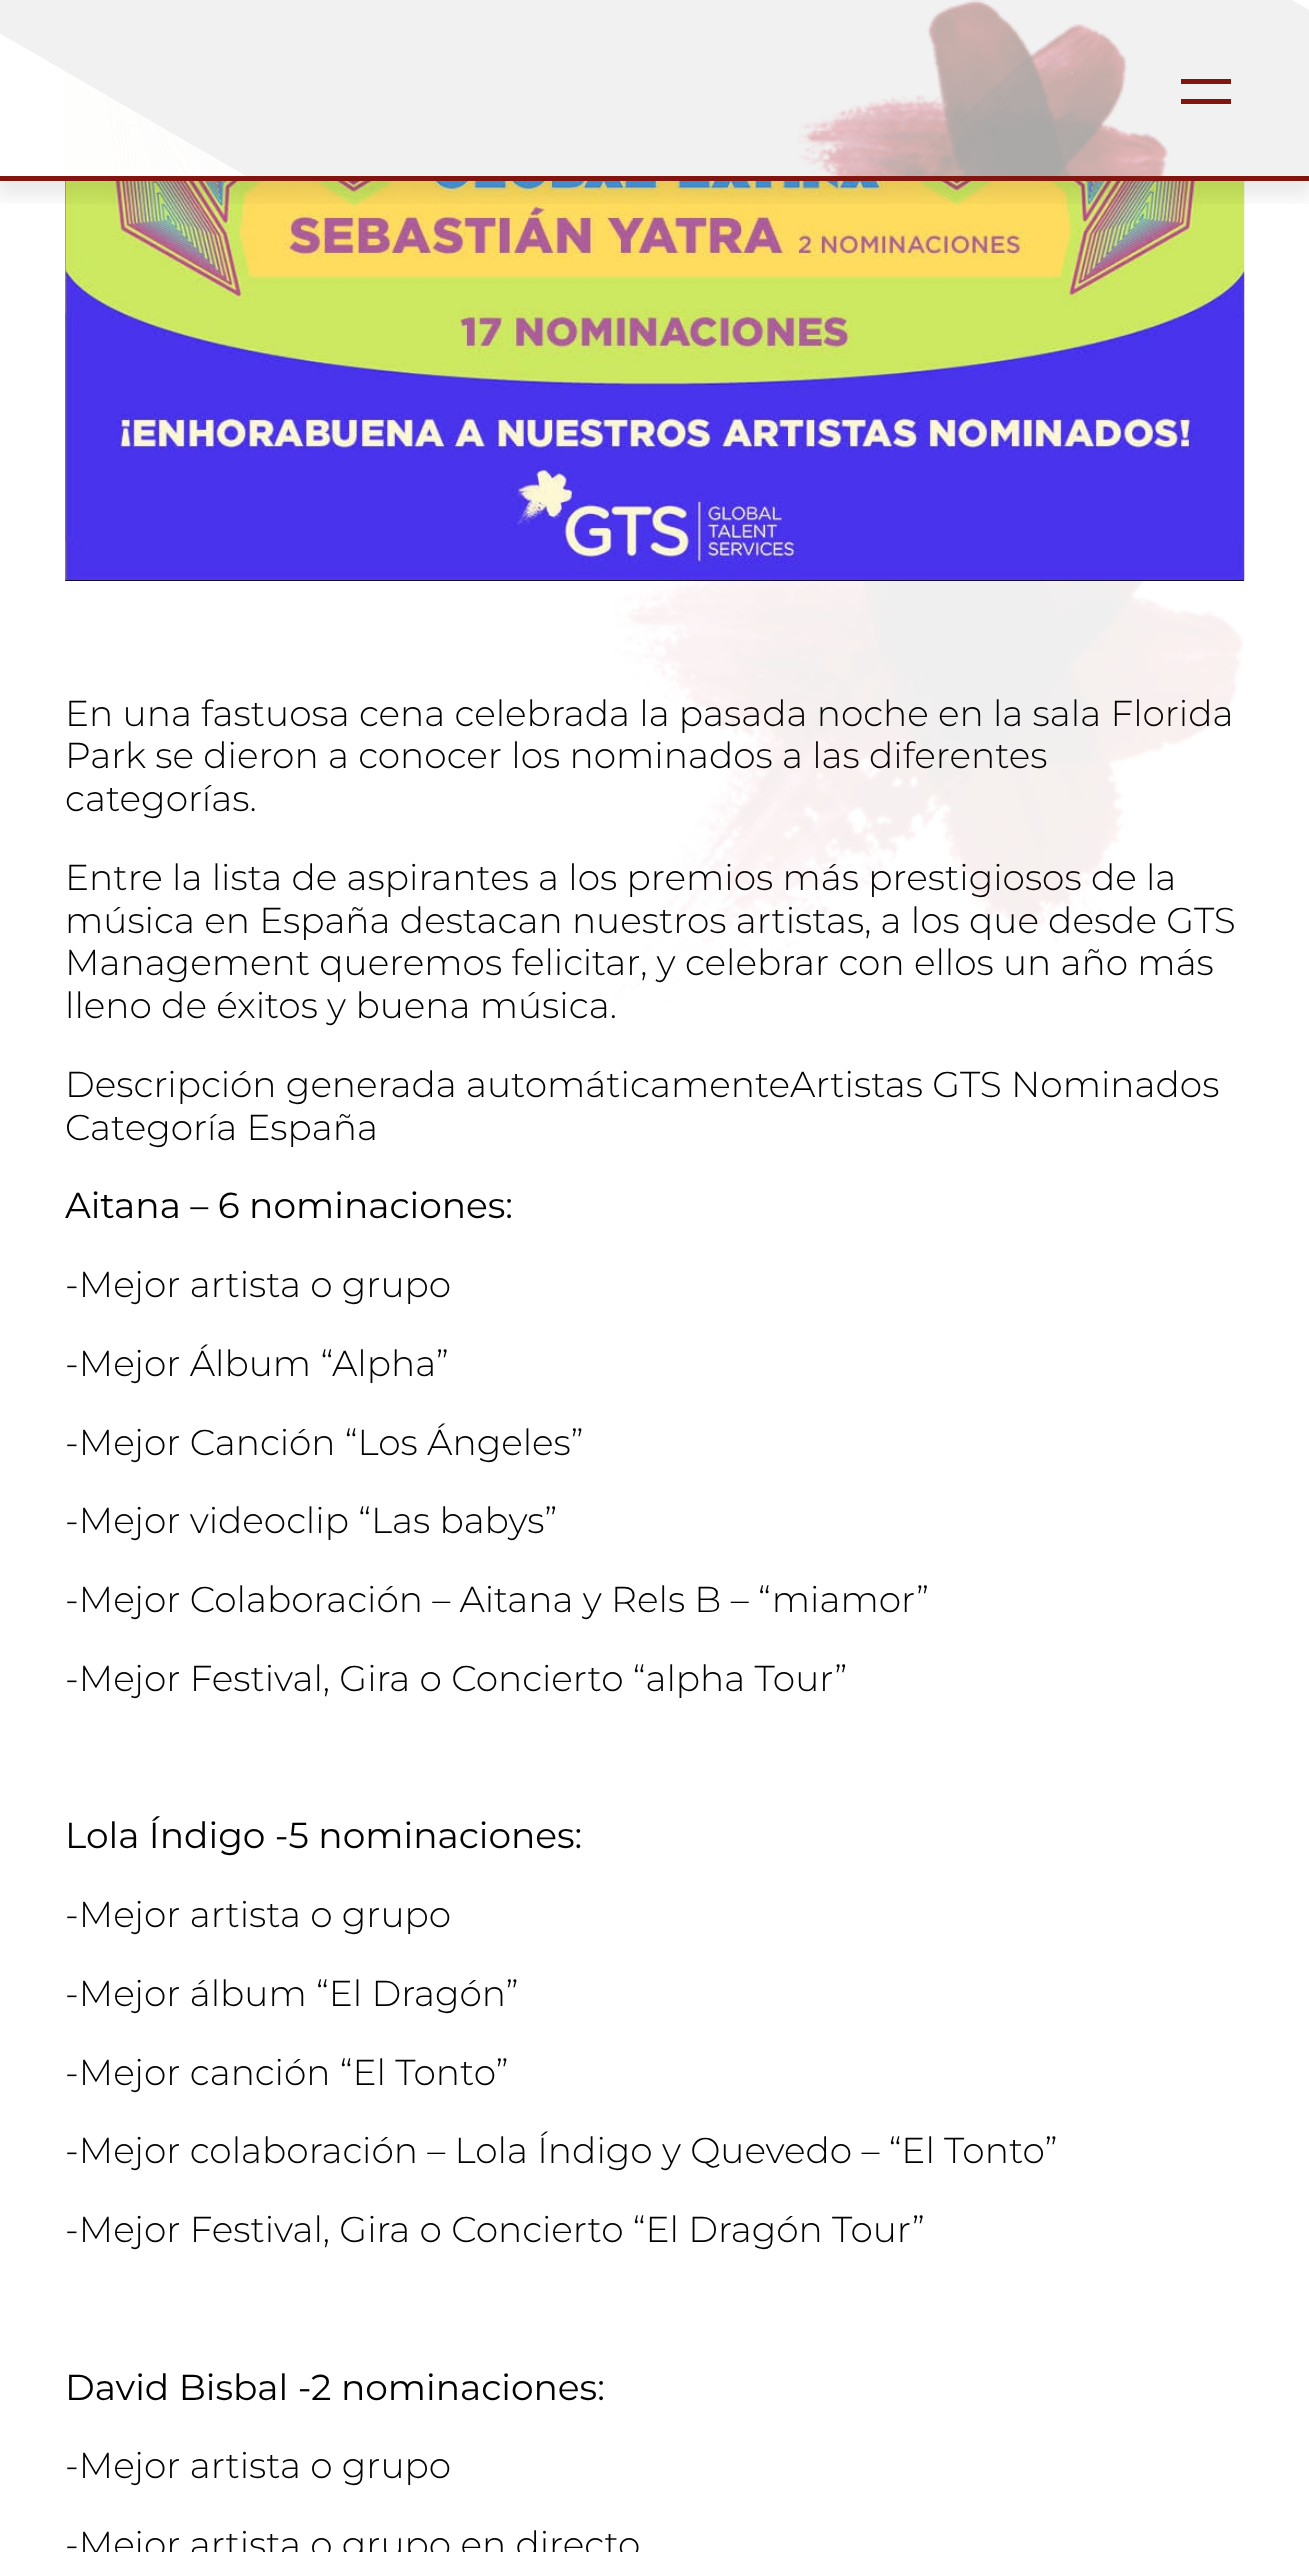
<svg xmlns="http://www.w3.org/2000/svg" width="1309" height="2552">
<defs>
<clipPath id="clip1"><rect x="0" y="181" width="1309" height="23"/></clipPath>
</defs>
<rect width="100%" height="100%" fill="#fff"/>
<rect x="65" y="71" width="1179" height="510" fill="#000"/>
<image x="65" y="71" width="1180" height="510" href="media/2.png"/>
<g clip-path="url(#clip1)">
<rect x="-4" y="7" width="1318" height="189" fill="#00000017" filter="blur(10px)"/>
</g>
<rect x="65" y="71" width="1180" height="105" fill="#fffffffa"/>
<rect y="176" width="1309" height="5" fill="#811610"/>
<path d="M-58 0h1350l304 176h-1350z" fill="#f1f1f1"/>
<image x="797" y="0" width="372" height="176" href="media/1.png"/>
<rect x="1181" y="79" width="50" height="5" fill="#811610"/>
<rect x="1181" y="99" width="50" height="5" fill="#811610"/>
<text x="65" y="726" style="font-family:Montserrat;font-size:36px;font-weight:300;fill:#000">En una fastuosa cena celebrada la pasada noche en la sala Florida</text>
<text x="65" y="768" style="font-family:Montserrat;font-size:36px;font-weight:300;fill:#000">Park se dieron a conocer los nominados a las diferentes</text>
<text x="65" y="890" style="font-family:Montserrat;font-size:36px;font-weight:300;fill:#000">Entre la lista de aspirantes a los premios más prestigiosos de la</text>
<text x="65" y="933" style="font-family:Montserrat;font-size:36px;font-weight:300;fill:#000">música en España destacan nuestros artistas, a los que desde GTS</text>
<text x="65" y="975" style="font-family:Montserrat;font-size:36px;font-weight:300;fill:#000">Management queremos felicitar, y celebrar con ellos un año más</text>
<text x="65" y="1018" style="font-family:Montserrat;font-size:36px;font-weight:300;fill:#000">lleno de éxitos y buena música.</text>
<image x="615" y="581" width="629" height="422" href="media/3.png"/>
<text x="65" y="811" style="font-family:Montserrat;font-size:36px;font-weight:300;fill:#000">categorías.</text>
<text x="65" y="1097" style="font-family:Montserrat;font-size:36px;font-weight:300;fill:#000">Descripción generada automáticamenteArtistas GTS Nominados</text>
<text x="65" y="1140" style="font-family:Montserrat;font-size:36px;font-weight:300;fill:#000">Categoría España</text>
<text x="65" y="1218" style="font-family:Montserrat;font-size:36px;fill:#000">Aitana – 6 nominaciones:</text>
<text x="65" y="1297" style="font-family:Montserrat;font-size:36px;font-weight:300;fill:#000">-Mejor artista o grupo</text>
<text x="65" y="1376" style="font-family:Montserrat;font-size:36px;font-weight:300;fill:#000">-Mejor Álbum “Alpha”</text>
<text x="65" y="1455" style="font-family:Montserrat;font-size:36px;font-weight:300;fill:#000">-Mejor Canción “Los Ángeles”</text>
<text x="65" y="1533" style="font-family:Montserrat;font-size:36px;font-weight:300;fill:#000">-Mejor videoclip “Las babys”</text>
<text x="65" y="1612" style="font-family:Montserrat;font-size:36px;font-weight:300;fill:#000">-Mejor Colaboración – Aitana y Rels B – “miamor”</text>
<text x="65" y="1691" style="font-family:Montserrat;font-size:36px;font-weight:300;fill:#000">-Mejor Festival, Gira o Concierto “alpha Tour”</text>
<text x="65" y="1848" style="font-family:Montserrat;font-size:36px;fill:#000">Lola Índigo -5 nominaciones:</text>
<text x="65" y="1927" style="font-family:Montserrat;font-size:36px;font-weight:300;fill:#000">-Mejor artista o grupo</text>
<text x="65" y="2006" style="font-family:Montserrat;font-size:36px;font-weight:300;fill:#000">-Mejor álbum “El Dragón”</text>
<text x="65" y="2085" style="font-family:Montserrat;font-size:36px;font-weight:300;fill:#000">-Mejor canción “El Tonto”</text>
<text x="65" y="2163" style="font-family:Montserrat;font-size:36px;font-weight:300;fill:#000">-Mejor colaboración – Lola Índigo y Quevedo – “El Tonto”</text>
<text x="65" y="2242" style="font-family:Montserrat;font-size:36px;font-weight:300;fill:#000">-Mejor Festival, Gira o Concierto “El Dragón Tour”</text>
<text x="65" y="2400" style="font-family:Montserrat;font-size:36px;fill:#000">David Bisbal -2 nominaciones:</text>
<text x="65" y="2478" style="font-family:Montserrat;font-size:36px;font-weight:300;fill:#000">-Mejor artista o grupo</text>
<text x="65" y="2557" style="font-family:Montserrat;font-size:36px;font-weight:300;fill:#000">-Mejor artista o grupo en directo</text>
</svg>
